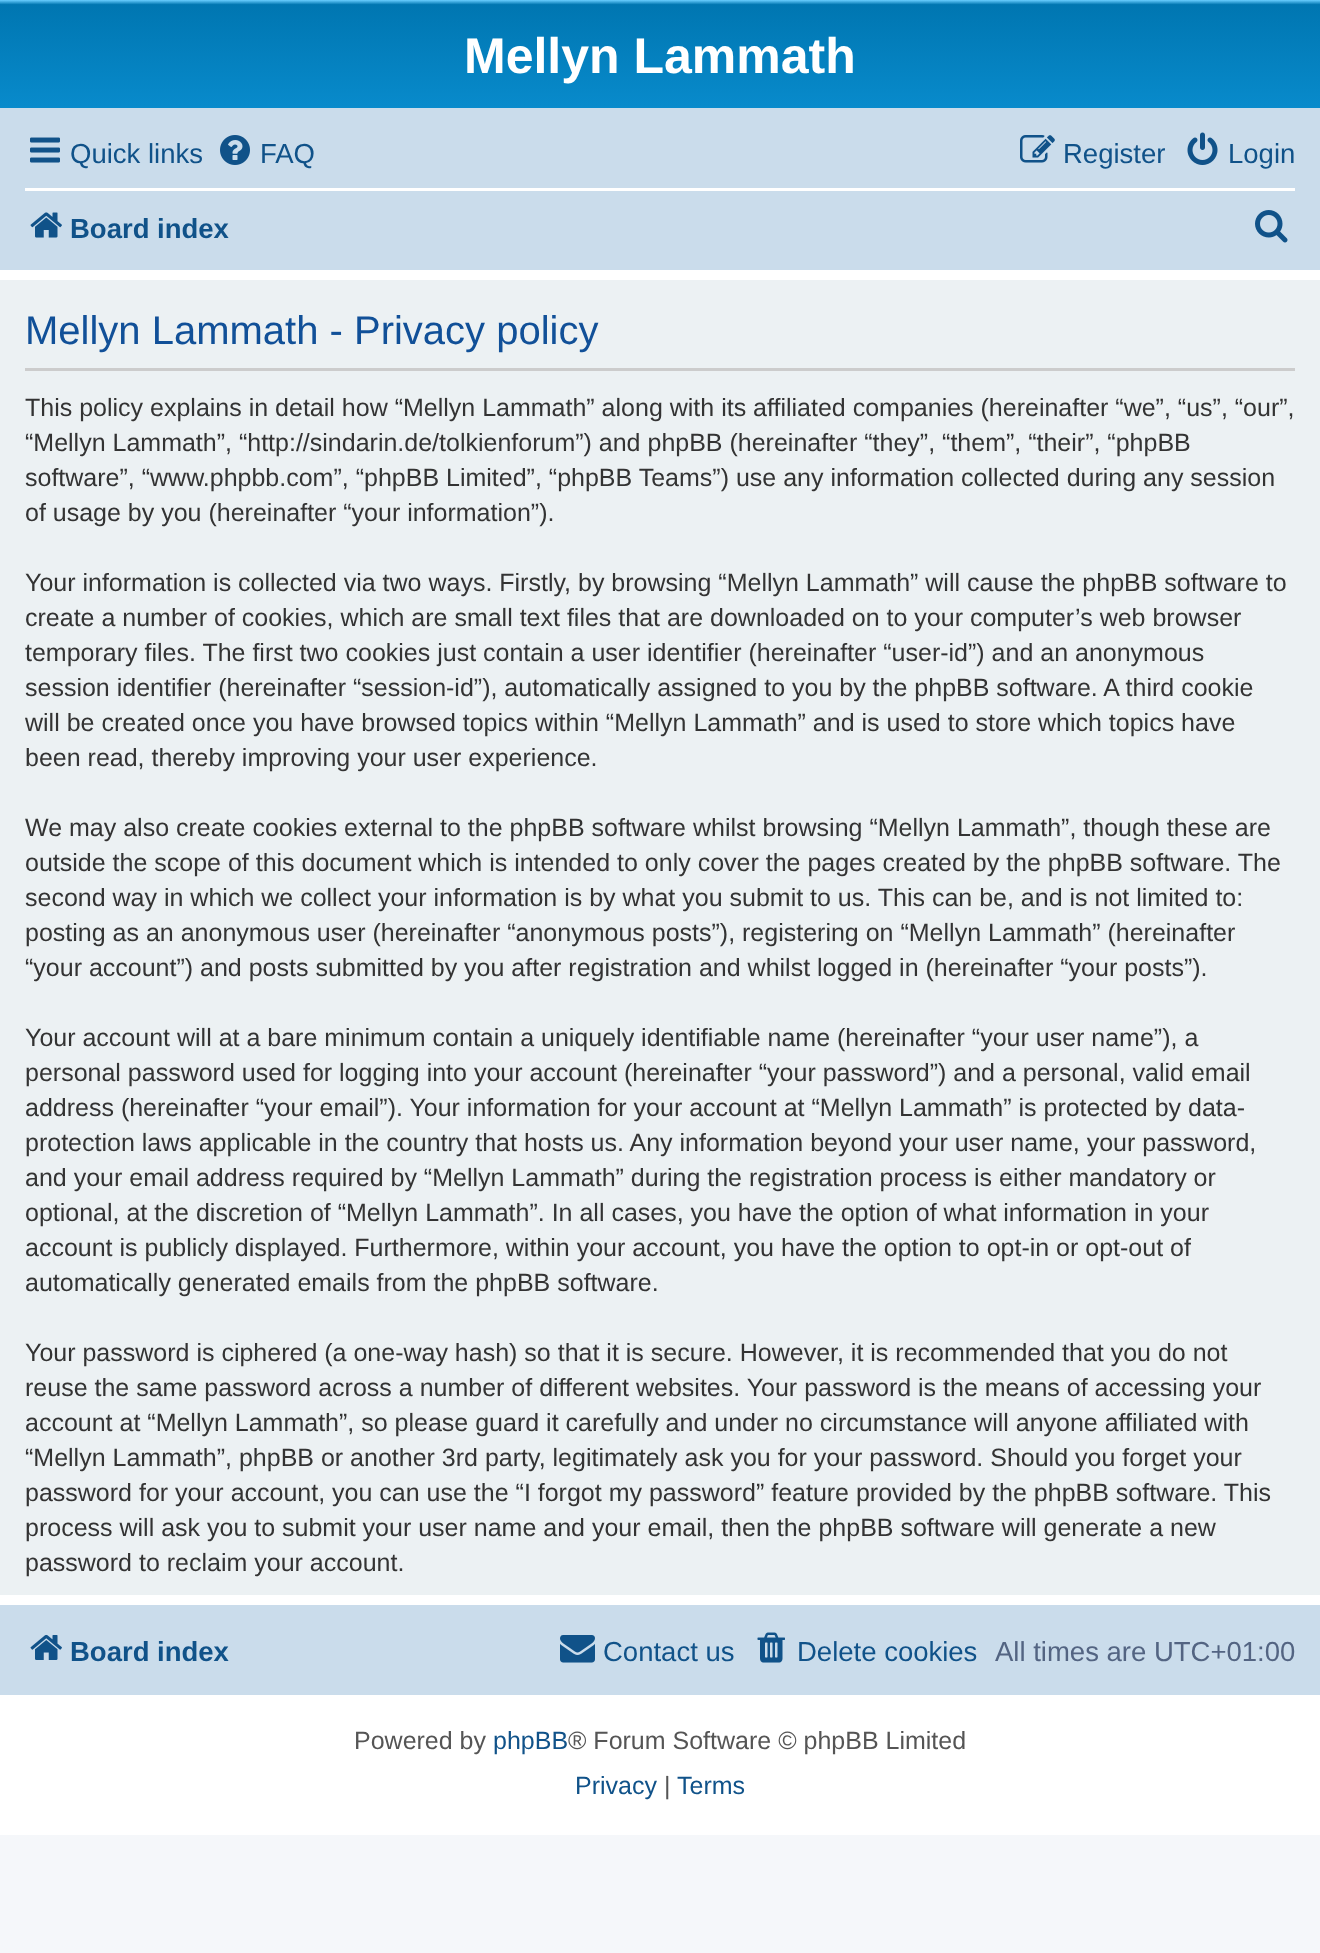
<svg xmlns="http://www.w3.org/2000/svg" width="1320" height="1953">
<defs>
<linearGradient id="g1" gradientUnits="userSpaceOnUse" x1="660" y1="0" x2="660" y2="230"><stop offset="0" stop-color="#6aceff"/><stop offset="0.02" stop-color="#0076b1"/><stop offset="1" stop-color="#12a3eb"/></linearGradient>
</defs>
<rect width="100%" height="100%" fill="#f5f7fa"/>
<rect y="270" width="1320" height="1565" fill="#fff"/>
<rect width="1320" height="108" fill="url(#g1)"/>
<text x="464" y="73" style="font-family:Liberation Sans;font-size:50px;font-weight:bold;fill:#fff">Mellyn Lammath</text>
<rect y="108" width="1320" height="162" fill="#cadceb"/>
<image x="30" y="137" width="30" height="26" href="media/1.png"/>
<text x="70" y="163" style="font-family:Liberation Sans;font-size:27.5px;fill:#105289">Quick links</text>
<image x="220" y="135" width="30" height="30" href="media/2.png"/>
<text x="260" y="163" style="font-family:Liberation Sans;font-size:27.5px;fill:#105289">FAQ</text>
<image x="1020" y="135" width="35" height="28" href="media/3.png"/>
<text x="1063" y="163" style="font-family:Liberation Sans;font-size:27.5px;fill:#105289">Register</text>
<image x="1187" y="132" width="31" height="33" href="media/4.png"/>
<text x="1228" y="163" style="font-family:Liberation Sans;font-size:27.5px;fill:#105289">Login</text>
<rect x="25" y="188" width="1270" height="3" fill="#fff"/>
<image x="30" y="212" width="32" height="26" href="media/5.png"/>
<text x="70" y="238" style="font-family:Liberation Sans;font-size:27.5px;font-weight:bold;fill:#105289">Board index</text>
<image x="1255" y="210" width="33" height="33" href="media/6.png"/>
<rect y="280" width="1320" height="1315" fill="#ecf1f3"/>
<rect x="25" y="368" width="1270" height="3" fill="#ccc"/>
<text x="25" y="344" style="font-family:Liberation Sans;font-size:40px;fill:#115098">Mellyn Lammath - Privacy policy</text>
<text x="25" y="416" style="font-family:Liberation Sans;font-size:25px;fill:#333">This policy explains in detail how “Mellyn Lammath” along with its affiliated companies (hereinafter “we”, “us”, “our”,</text>
<text x="25" y="451" style="font-family:Liberation Sans;font-size:25px;fill:#333">“Mellyn Lammath”, “http://sindarin.de/tolkienforum”) and phpBB (hereinafter “they”, “them”, “their”, “phpBB</text>
<text x="25" y="486" style="font-family:Liberation Sans;font-size:25px;fill:#333">software”, “www.phpbb.com”, “phpBB Limited”, “phpBB Teams”) use any information collected during any session</text>
<text x="25" y="521" style="font-family:Liberation Sans;font-size:25px;fill:#333">of usage by you (hereinafter “your information”).</text>
<text x="25" y="591" style="font-family:Liberation Sans;font-size:25px;fill:#333">Your information is collected via two ways. Firstly, by browsing “Mellyn Lammath” will cause the phpBB software to</text>
<text x="25" y="626" style="font-family:Liberation Sans;font-size:25px;fill:#333">create a number of cookies, which are small text files that are downloaded on to your computer’s web browser</text>
<text x="25" y="661" style="font-family:Liberation Sans;font-size:25px;fill:#333">temporary files. The first two cookies just contain a user identifier (hereinafter “user-id”) and an anonymous</text>
<text x="25" y="696" style="font-family:Liberation Sans;font-size:25px;fill:#333">session identifier (hereinafter “session-id”), automatically assigned to you by the phpBB software. A third cookie</text>
<text x="25" y="731" style="font-family:Liberation Sans;font-size:25px;fill:#333">will be created once you have browsed topics within “Mellyn Lammath” and is used to store which topics have</text>
<text x="25" y="766" style="font-family:Liberation Sans;font-size:25px;fill:#333">been read, thereby improving your user experience.</text>
<text x="25" y="836" style="font-family:Liberation Sans;font-size:25px;fill:#333">We may also create cookies external to the phpBB software whilst browsing “Mellyn Lammath”, though these are</text>
<text x="25" y="871" style="font-family:Liberation Sans;font-size:25px;fill:#333">outside the scope of this document which is intended to only cover the pages created by the phpBB software. The</text>
<text x="25" y="906" style="font-family:Liberation Sans;font-size:25px;fill:#333">second way in which we collect your information is by what you submit to us. This can be, and is not limited to:</text>
<text x="25" y="941" style="font-family:Liberation Sans;font-size:25px;fill:#333">posting as an anonymous user (hereinafter “anonymous posts”), registering on “Mellyn Lammath” (hereinafter</text>
<text x="25" y="976" style="font-family:Liberation Sans;font-size:25px;fill:#333">“your account”) and posts submitted by you after registration and whilst logged in (hereinafter “your posts”).</text>
<text x="25" y="1046" style="font-family:Liberation Sans;font-size:25px;fill:#333">Your account will at a bare minimum contain a uniquely identifiable name (hereinafter “your user name”), a</text>
<text x="25" y="1081" style="font-family:Liberation Sans;font-size:25px;fill:#333">personal password used for logging into your account (hereinafter “your password”) and a personal, valid email</text>
<text x="25" y="1116" style="font-family:Liberation Sans;font-size:25px;fill:#333">address (hereinafter “your email”). Your information for your account at “Mellyn Lammath” is protected by data-</text>
<text x="25" y="1151" style="font-family:Liberation Sans;font-size:25px;fill:#333">protection laws applicable in the country that hosts us. Any information beyond your user name, your password,</text>
<text x="25" y="1186" style="font-family:Liberation Sans;font-size:25px;fill:#333">and your email address required by “Mellyn Lammath” during the registration process is either mandatory or</text>
<text x="25" y="1221" style="font-family:Liberation Sans;font-size:25px;fill:#333">optional, at the discretion of “Mellyn Lammath”. In all cases, you have the option of what information in your</text>
<text x="25" y="1256" style="font-family:Liberation Sans;font-size:25px;fill:#333">account is publicly displayed. Furthermore, within your account, you have the option to opt-in or opt-out of</text>
<text x="25" y="1291" style="font-family:Liberation Sans;font-size:25px;fill:#333">automatically generated emails from the phpBB software.</text>
<text x="25" y="1361" style="font-family:Liberation Sans;font-size:25px;fill:#333">Your password is ciphered (a one-way hash) so that it is secure. However, it is recommended that you do not</text>
<text x="25" y="1396" style="font-family:Liberation Sans;font-size:25px;fill:#333">reuse the same password across a number of different websites. Your password is the means of accessing your</text>
<text x="25" y="1431" style="font-family:Liberation Sans;font-size:25px;fill:#333">account at “Mellyn Lammath”, so please guard it carefully and under no circumstance will anyone affiliated with</text>
<text x="25" y="1466" style="font-family:Liberation Sans;font-size:25px;fill:#333">“Mellyn Lammath”, phpBB or another 3rd party, legitimately ask you for your password. Should you forget your</text>
<text x="25" y="1501" style="font-family:Liberation Sans;font-size:25px;fill:#333">password for your account, you can use the “I forgot my password” feature provided by the phpBB software. This</text>
<text x="25" y="1536" style="font-family:Liberation Sans;font-size:25px;fill:#333">process will ask you to submit your user name and your email, then the phpBB software will generate a new</text>
<text x="25" y="1571" style="font-family:Liberation Sans;font-size:25px;fill:#333">password to reclaim your account.</text>
<rect y="1605" width="1320" height="90" fill="#cadceb"/>
<image x="30" y="1634" width="32" height="26" href="media/7.png"/>
<text x="70" y="1661" style="font-family:Liberation Sans;font-size:27.5px;font-weight:bold;fill:#105289">Board index</text>
<image x="560" y="1635" width="35" height="28" href="media/8.png"/>
<text x="603" y="1661" style="font-family:Liberation Sans;font-size:27.5px;fill:#105289">Contact us</text>
<image x="757" y="1632" width="28" height="31" href="media/9.png"/>
<text x="797" y="1661" style="font-family:Liberation Sans;font-size:27.5px;fill:#105289">Delete cookies</text>
<text x="995" y="1661" style="font-family:Liberation Sans;font-size:27.5px;fill:#536482">All times are UTC+01:00</text>
<text x="354" y="1749" style="font-family:Liberation Sans;font-size:25px;fill:#555">Powered by</text>
<text x="493" y="1749" style="font-family:Liberation Sans;font-size:25px;fill:#105289">phpBB</text>
<text x="568" y="1749" style="font-family:Liberation Sans;font-size:25px;fill:#555">® Forum Software © phpBB Limited</text>
<text x="575" y="1794" style="font-family:Liberation Sans;font-size:25px;fill:#105289">Privacy</text>
<text x="664" y="1794" style="font-family:Liberation Sans;font-size:25px;fill:#555">|</text>
<text x="677" y="1794" style="font-family:Liberation Sans;font-size:25px;fill:#105289">Terms</text>
</svg>
